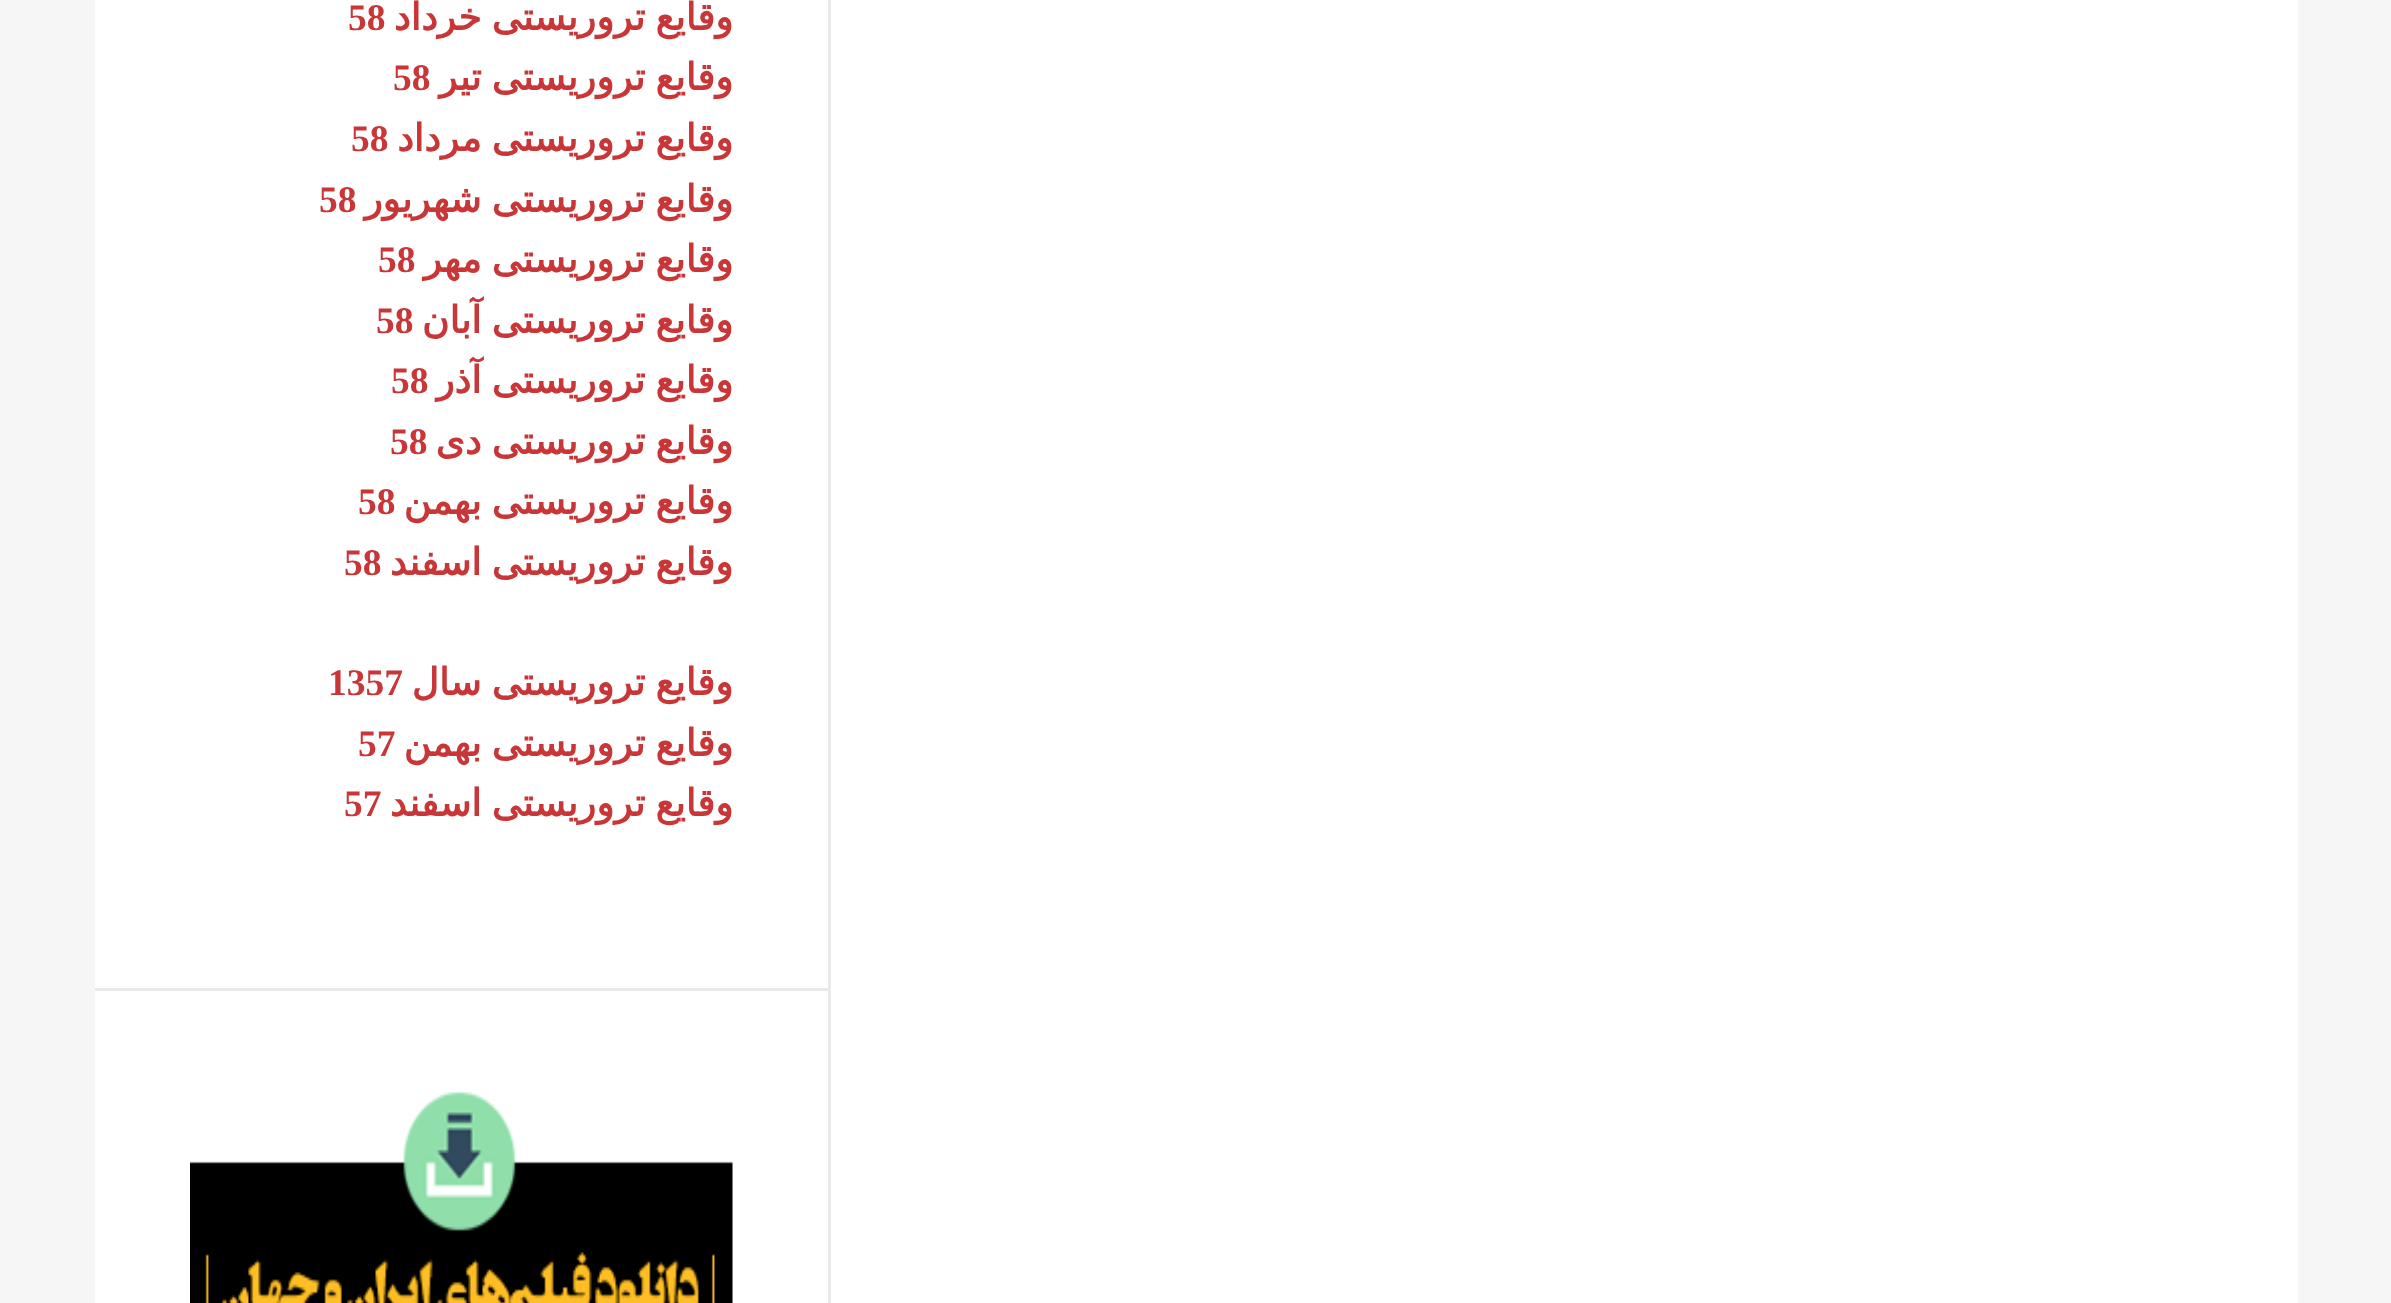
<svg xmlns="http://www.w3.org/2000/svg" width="2391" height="1303">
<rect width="100%" height="100%" fill="#f6f6f6"/>
<rect x="95" width="2203" height="1303" fill="#fff"/>
<rect x="828" width="3" height="1303" fill="#eaeaea"/>
<rect x="95" y="988" width="733" height="3" fill="#eaeaea"/>
<text x="733" y="30" word-spacing="-2" style="font-family:DejaVu Sans;font-size:37.5px;font-weight:bold;direction:rtl;fill:#c93638">وقایع تروریستی خرداد</text>
<text x="348" y="30" style="font-family:Liberation Serif;font-size:37.5px;font-weight:bold;fill:#c93638">58</text>
<text x="733" y="90" word-spacing="-2" style="font-family:DejaVu Sans;font-size:37.5px;font-weight:bold;direction:rtl;fill:#c93638">وقایع تروریستی تیر</text>
<text x="393" y="90" style="font-family:Liberation Serif;font-size:37.5px;font-weight:bold;fill:#c93638">58</text>
<text x="733" y="151" word-spacing="-2" style="font-family:DejaVu Sans;font-size:37.5px;font-weight:bold;direction:rtl;fill:#c93638">وقایع تروریستی مرداد</text>
<text x="351" y="151" style="font-family:Liberation Serif;font-size:37.5px;font-weight:bold;fill:#c93638">58</text>
<text x="733" y="212" word-spacing="-2" style="font-family:DejaVu Sans;font-size:37.5px;font-weight:bold;direction:rtl;fill:#c93638">وقایع تروریستی شهریور</text>
<text x="319" y="212" style="font-family:Liberation Serif;font-size:37.5px;font-weight:bold;fill:#c93638">58</text>
<text x="733" y="272" word-spacing="-2" style="font-family:DejaVu Sans;font-size:37.5px;font-weight:bold;direction:rtl;fill:#c93638">وقایع تروریستی مهر</text>
<text x="378" y="272" style="font-family:Liberation Serif;font-size:37.5px;font-weight:bold;fill:#c93638">58</text>
<text x="733" y="333" word-spacing="-2" style="font-family:DejaVu Sans;font-size:37.5px;font-weight:bold;direction:rtl;fill:#c93638">وقایع تروریستی آبان</text>
<text x="376" y="333" style="font-family:Liberation Serif;font-size:37.5px;font-weight:bold;fill:#c93638">58</text>
<text x="733" y="393" word-spacing="-2" style="font-family:DejaVu Sans;font-size:37.5px;font-weight:bold;direction:rtl;fill:#c93638">وقایع تروریستی آذر</text>
<text x="391" y="393" style="font-family:Liberation Serif;font-size:37.5px;font-weight:bold;fill:#c93638">58</text>
<text x="733" y="454" word-spacing="-2" style="font-family:DejaVu Sans;font-size:37.5px;font-weight:bold;direction:rtl;fill:#c93638">وقایع تروریستی دی</text>
<text x="390" y="454" style="font-family:Liberation Serif;font-size:37.5px;font-weight:bold;fill:#c93638">58</text>
<text x="733" y="514" word-spacing="-2" style="font-family:DejaVu Sans;font-size:37.5px;font-weight:bold;direction:rtl;fill:#c93638">وقایع تروریستی بهمن</text>
<text x="358" y="514" style="font-family:Liberation Serif;font-size:37.5px;font-weight:bold;fill:#c93638">58</text>
<text x="733" y="575" word-spacing="-2" style="font-family:DejaVu Sans;font-size:37.5px;font-weight:bold;direction:rtl;fill:#c93638">وقایع تروریستی اسفند</text>
<text x="344" y="575" style="font-family:Liberation Serif;font-size:37.5px;font-weight:bold;fill:#c93638">58</text>
<text x="733" y="695" word-spacing="-2" style="font-family:DejaVu Sans;font-size:37.5px;font-weight:bold;direction:rtl;fill:#c93638">وقایع تروریستی سال</text>
<text x="328" y="695" style="font-family:Liberation Serif;font-size:37.5px;font-weight:bold;fill:#c93638">1357</text>
<text x="733" y="756" word-spacing="-2" style="font-family:DejaVu Sans;font-size:37.5px;font-weight:bold;direction:rtl;fill:#c93638">وقایع تروریستی بهمن</text>
<text x="358" y="756" style="font-family:Liberation Serif;font-size:37.5px;font-weight:bold;fill:#c93638">57</text>
<text x="733" y="816" word-spacing="-2" style="font-family:DejaVu Sans;font-size:37.5px;font-weight:bold;direction:rtl;fill:#c93638">وقایع تروریستی اسفند</text>
<text x="344" y="816" style="font-family:Liberation Serif;font-size:37.5px;font-weight:bold;fill:#c93638">57</text>
<image x="190" y="1091" width="543" height="212" href="media/1.png"/>
</svg>
